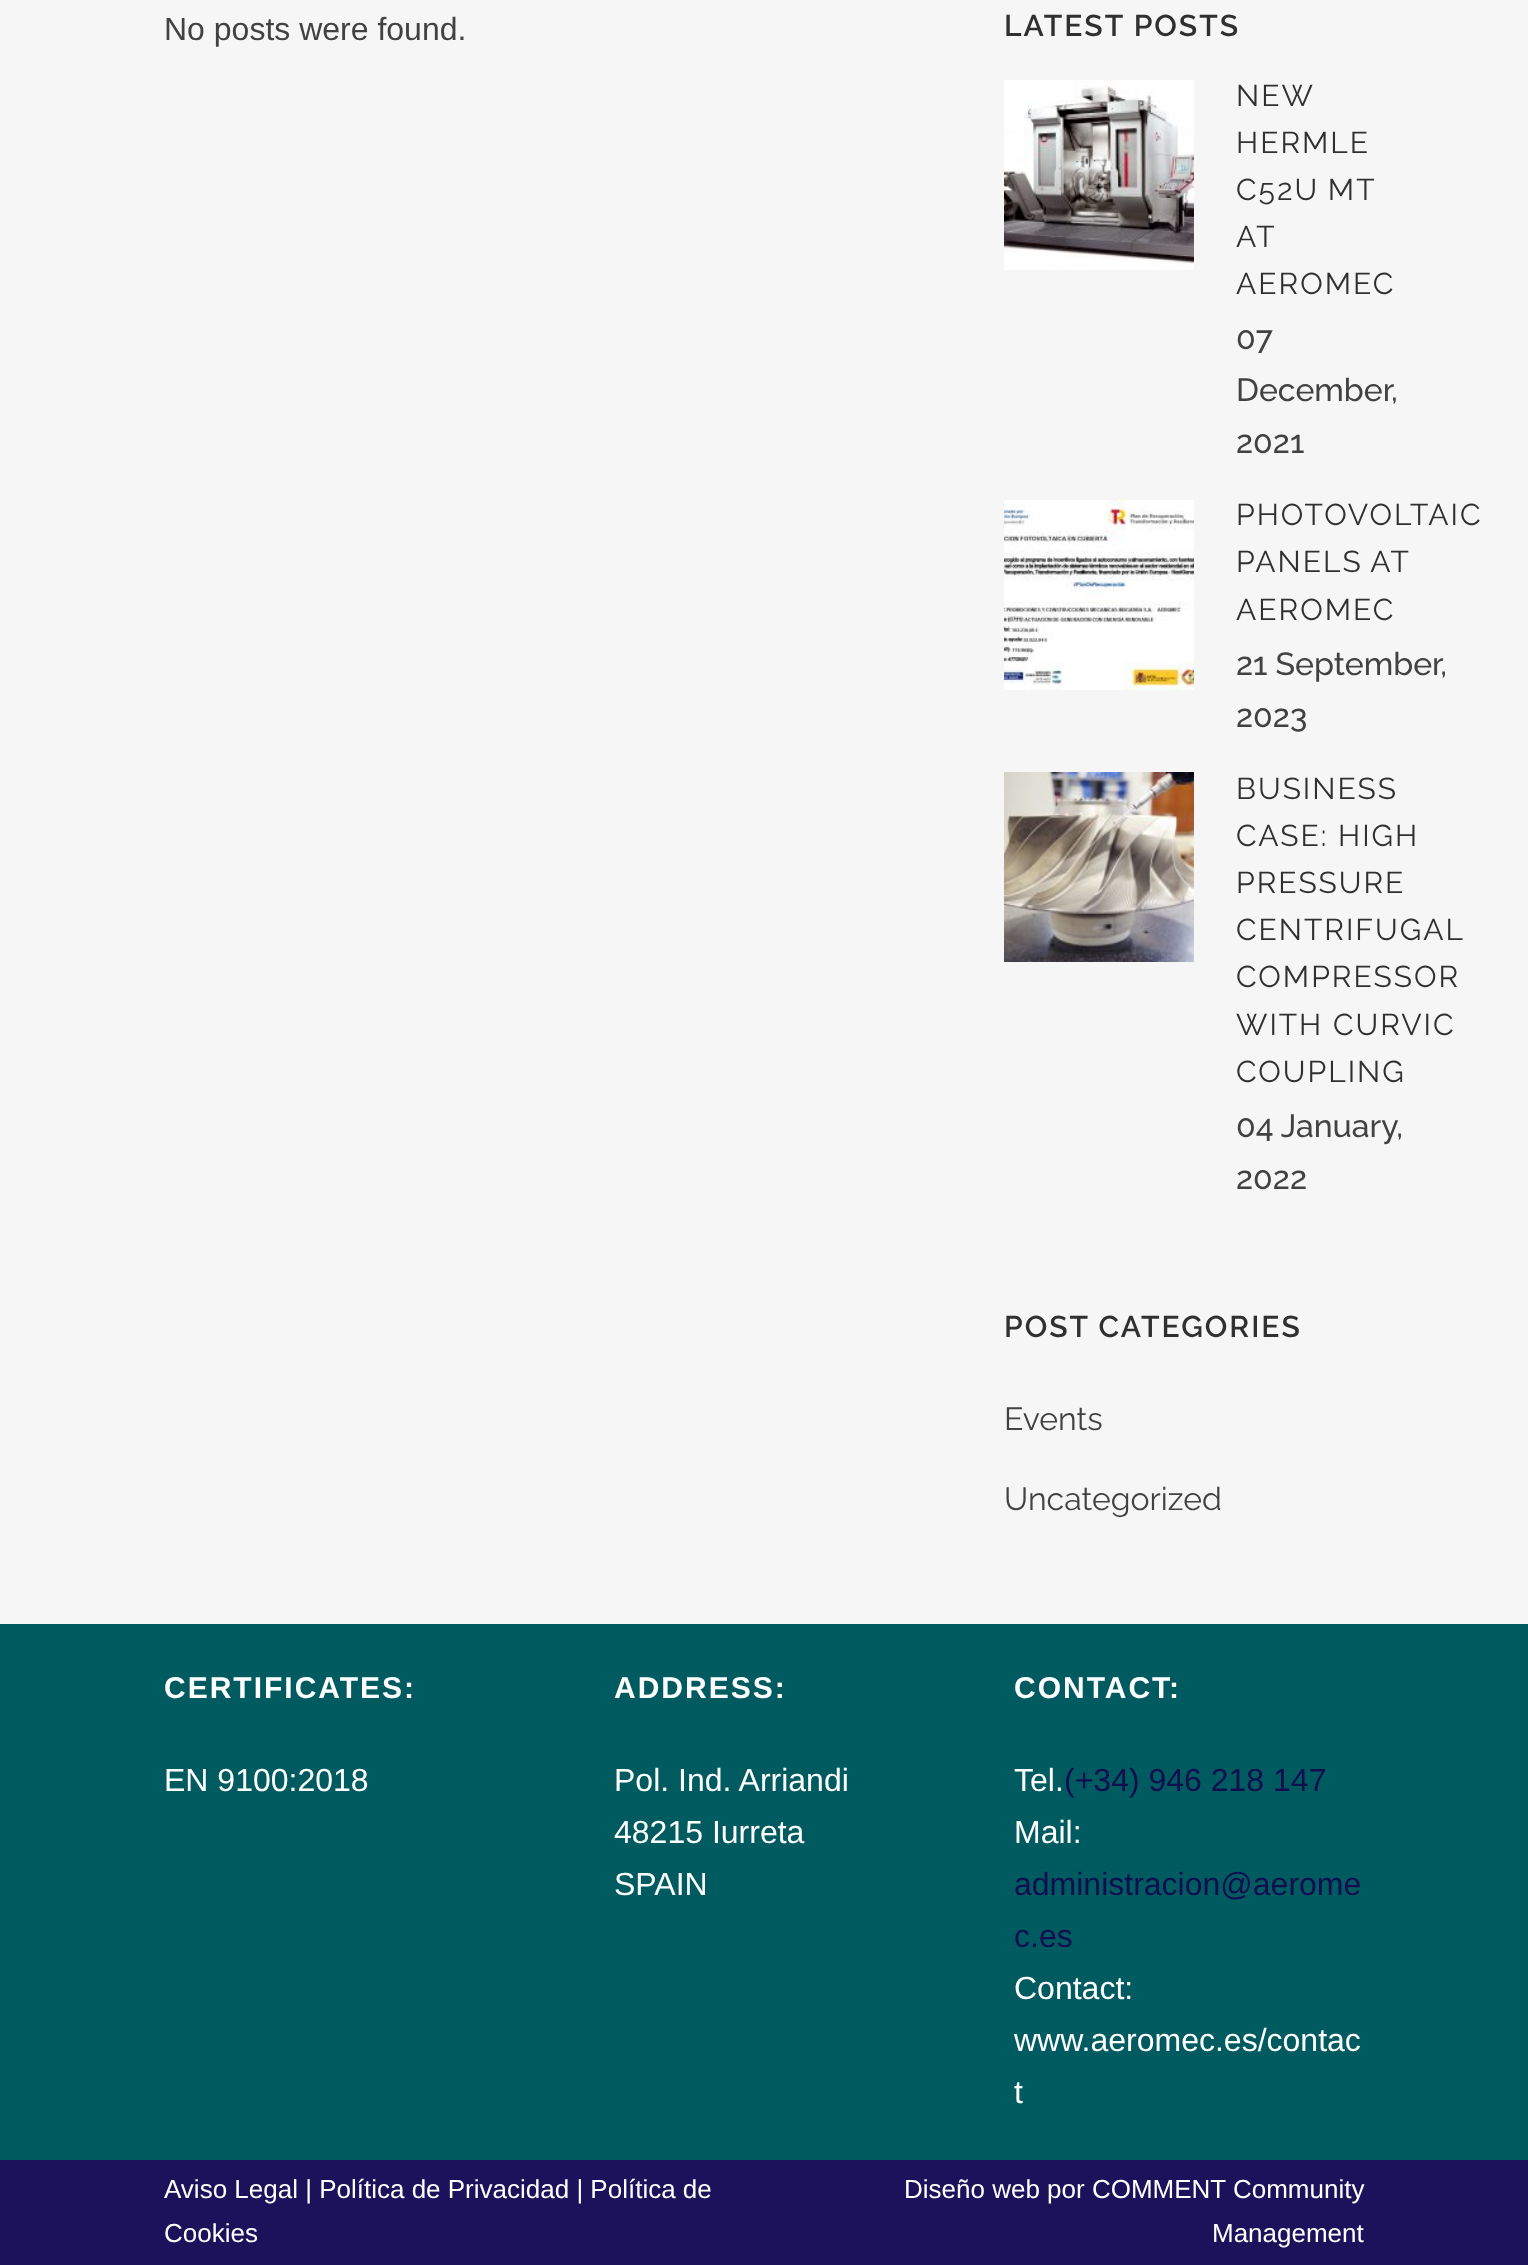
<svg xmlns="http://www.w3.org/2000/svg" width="1528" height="2265">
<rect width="100%" height="100%" fill="#f6f6f6"/>
<text x="164" y="40" style="font-family:Liberation Sans;font-size:32px;fill:#424242">No posts were found.</text>
<text x="1004" y="36" style="font-family:Raleway;font-size:30px;font-weight:600;letter-spacing:2px;fill:#303030">LATEST POSTS</text>
<image x="1004" y="80" width="190" height="190" href="media/1.png"/>
<text x="1236" y="106" style="font-family:Raleway;font-size:30px;letter-spacing:2px;fill:#303030">NEW</text>
<text x="1236" y="153" style="font-family:Raleway;font-size:30px;letter-spacing:2px;fill:#303030">HERMLE</text>
<text x="1236" y="200" word-spacing="-1" style="font-family:Raleway;font-size:30px;letter-spacing:2px;fill:#303030">C52U MT</text>
<text x="1236" y="247" style="font-family:Raleway;font-size:30px;letter-spacing:2px;fill:#303030">AT</text>
<text x="1236" y="294" style="font-family:Raleway;font-size:30px;letter-spacing:2px;fill:#303030">AEROMEC</text>
<text x="1236" y="349" style="font-family:Raleway;font-size:32px;font-weight:500;fill:#424242">07</text>
<text x="1236" y="401" style="font-family:Raleway;font-size:32px;font-weight:500;fill:#424242">December,</text>
<text x="1236" y="453" style="font-family:Raleway;font-size:32px;font-weight:500;fill:#424242">2021</text>
<image x="1004" y="500" width="190" height="190" href="media/2.png"/>
<text x="1236" y="525" style="font-family:Raleway;font-size:30px;letter-spacing:2px;fill:#303030">PHOTOVOLTAIC</text>
<text x="1236" y="572" word-spacing="-1" style="font-family:Raleway;font-size:30px;letter-spacing:2px;fill:#303030">PANELS AT</text>
<text x="1236" y="620" style="font-family:Raleway;font-size:30px;letter-spacing:2px;fill:#303030">AEROMEC</text>
<text x="1236" y="675" style="font-family:Raleway;font-size:32px;font-weight:500;fill:#424242">21 September,</text>
<text x="1236" y="727" style="font-family:Raleway;font-size:32px;font-weight:500;fill:#424242">2023</text>
<image x="1004" y="772" width="190" height="190" href="media/3.png"/>
<text x="1236" y="799" style="font-family:Raleway;font-size:30px;letter-spacing:2px;fill:#303030">BUSINESS</text>
<text x="1236" y="846" style="font-family:Raleway;font-size:30px;letter-spacing:2px;fill:#303030">CASE: HIGH</text>
<text x="1236" y="893" style="font-family:Raleway;font-size:30px;letter-spacing:2px;fill:#303030">PRESSURE</text>
<text x="1236" y="940" style="font-family:Raleway;font-size:30px;letter-spacing:2px;fill:#303030">CENTRIFUGAL</text>
<text x="1236" y="987" style="font-family:Raleway;font-size:30px;letter-spacing:2px;fill:#303030">COMPRESSOR</text>
<text x="1236" y="1035" style="font-family:Raleway;font-size:30px;letter-spacing:2px;fill:#303030">WITH CURVIC</text>
<text x="1236" y="1082" style="font-family:Raleway;font-size:30px;letter-spacing:2px;fill:#303030">COUPLING</text>
<text x="1236" y="1137" style="font-family:Raleway;font-size:32px;font-weight:500;fill:#424242">04 January,</text>
<text x="1236" y="1189" style="font-family:Raleway;font-size:32px;font-weight:500;fill:#424242">2022</text>
<text x="1004" y="1337" style="font-family:Raleway;font-size:30px;font-weight:600;letter-spacing:2px;fill:#303030">POST CATEGORIES</text>
<text x="1004" y="1430" style="font-family:Raleway;font-size:32px;fill:#424242">Events</text>
<text x="1004" y="1510" style="font-family:Raleway;font-size:32px;fill:#424242">Uncategorized</text>
<rect y="1624" width="1528" height="536" fill="#005b60"/>
<text x="164" y="1698" style="font-family:Liberation Sans;font-size:30px;font-weight:bold;letter-spacing:2px;fill:#fff">CERTIFICATES:</text>
<text x="164" y="1791" style="font-family:Liberation Sans;font-size:32px;fill:#fff">EN 9100:2018</text>
<text x="614" y="1698" style="font-family:Liberation Sans;font-size:30px;font-weight:bold;letter-spacing:2px;fill:#fff">ADDRESS:</text>
<text x="614" y="1791" style="font-family:Liberation Sans;font-size:32px;fill:#fff">Pol. Ind. Arriandi</text>
<text x="614" y="1843" style="font-family:Liberation Sans;font-size:32px;fill:#fff">48215 Iurreta</text>
<text x="614" y="1895" style="font-family:Liberation Sans;font-size:32px;fill:#fff">SPAIN</text>
<text x="1014" y="1698" style="font-family:Liberation Sans;font-size:30px;font-weight:bold;letter-spacing:2px;fill:#fff">CONTACT:</text>
<text x="1014" y="1791" style="font-family:Liberation Sans;font-size:32px;fill:#fff">Tel.</text>
<text x="1064" y="1791" style="font-family:Liberation Sans;font-size:32px;fill:#100e4f">(+34) 946 218 147</text>
<text x="1014" y="1843" style="font-family:Liberation Sans;font-size:32px;fill:#fff">Mail:</text>
<text x="1014" y="1895" style="font-family:Liberation Sans;font-size:32px;fill:#100e4f">administracion@aerome</text>
<text x="1014" y="1947" style="font-family:Liberation Sans;font-size:32px;fill:#100e4f">c.es</text>
<text x="1014" y="1999" style="font-family:Liberation Sans;font-size:32px;fill:#fff">Contact:</text>
<text x="1014" y="2051" style="font-family:Liberation Sans;font-size:32px;fill:#fff">www.aeromec.es/contac</text>
<text x="1014" y="2103" style="font-family:Liberation Sans;font-size:32px;fill:#fff">t</text>
<rect y="2160" width="1528" height="105" fill="#1b125b"/>
<text x="164" y="2198" style="font-family:Liberation Sans;font-size:26px;fill:#fff">Aviso Legal | Política de Privacidad | Política de</text>
<text x="164" y="2242" style="font-family:Liberation Sans;font-size:26px;fill:#fff">Cookies</text>
<text x="904" y="2198" style="font-family:Liberation Sans;font-size:26px;fill:#fff">Diseño web por COMMENT Community</text>
<text x="1212" y="2242" style="font-family:Liberation Sans;font-size:26px;fill:#fff">Management</text>
</svg>
